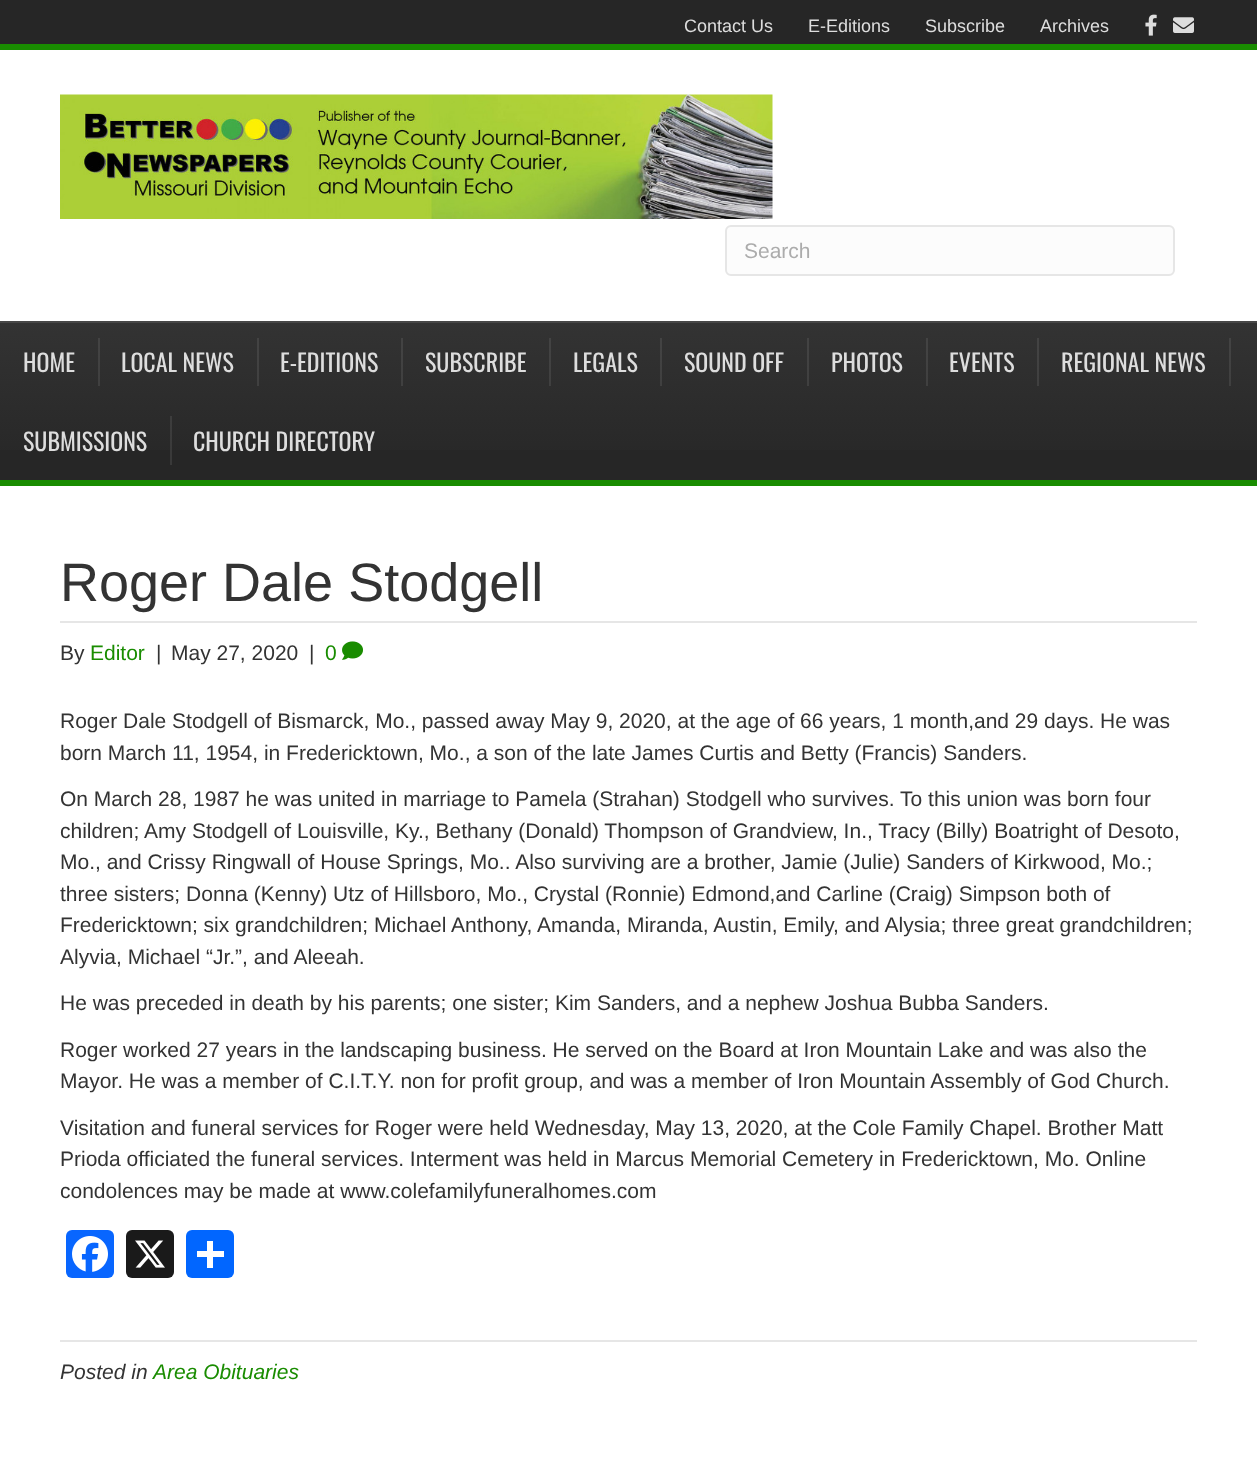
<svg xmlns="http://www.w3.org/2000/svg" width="1257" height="1464">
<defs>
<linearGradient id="g1" gradientUnits="userSpaceOnUse" x1="629" y1="322" x2="629" y2="480"><stop offset="0" stop-color="#333"/><stop offset="1" stop-color="#262626"/></linearGradient>
</defs>
<rect width="100%" height="100%" fill="#262626"/>
<rect y="44" width="1257" height="6" fill="#198c00"/>
<text x="684" y="32" style="font-family:Liberation Sans;font-size:18px;fill:#ddd">Contact Us</text>
<text x="808" y="32" style="font-family:Liberation Sans;font-size:18px;fill:#ddd">E-Editions</text>
<text x="925" y="32" style="font-family:Liberation Sans;font-size:18px;fill:#ddd">Subscribe</text>
<text x="1040" y="32" style="font-family:Liberation Sans;font-size:18px;fill:#ddd">Archives</text>
<image x="1145" y="14" width="12" height="22" href="media/1.png"/>
<image x="1173" y="17" width="21" height="16" href="media/2.png"/>
<rect y="50" width="1257" height="271" fill="#fff"/>
<image x="60" y="94" width="713" height="125" href="media/3.png"/>
<rect x="726" y="226" width="448" height="49" rx="5" fill="#fcfcfc" stroke="#e6e6e6" stroke-width="2"/>
<text x="744" y="258" style="font-family:Liberation Sans;font-size:21px;fill:#acacac">Search</text>
<rect y="323" width="1257" height="127" fill="url(#g1)"/>
<rect y="321" width="1257" height="2" fill="#474747"/>
<rect y="480" width="1257" height="6" fill="#198c00"/>
<rect x="98" y="338" width="2" height="48" fill="#dddddd1a"/>
<text x="23" y="372" style="font-family:Oswald;font-size:24px;fill:#ddd">HOME</text>
<rect x="257" y="338" width="2" height="48" fill="#dddddd1a"/>
<text x="121" y="372" style="font-family:Oswald;font-size:24px;fill:#ddd">LOCAL NEWS</text>
<rect x="401" y="338" width="2" height="48" fill="#dddddd1a"/>
<text x="280" y="372" style="font-family:Oswald;font-size:24px;fill:#ddd">E-EDITIONS</text>
<rect x="549" y="338" width="2" height="48" fill="#dddddd1a"/>
<text x="425" y="372" style="font-family:Oswald;font-size:24px;fill:#ddd">SUBSCRIBE</text>
<rect x="660" y="338" width="2" height="48" fill="#dddddd1a"/>
<text x="573" y="372" style="font-family:Oswald;font-size:24px;fill:#ddd">LEGALS</text>
<rect x="807" y="338" width="2" height="48" fill="#dddddd1a"/>
<text x="684" y="372" style="font-family:Oswald;font-size:24px;fill:#ddd">SOUND OFF</text>
<rect x="926" y="338" width="2" height="48" fill="#dddddd1a"/>
<text x="831" y="372" style="font-family:Oswald;font-size:24px;fill:#ddd">PHOTOS</text>
<rect x="1037" y="338" width="2" height="48" fill="#dddddd1a"/>
<text x="949" y="372" style="font-family:Oswald;font-size:24px;fill:#ddd">EVENTS</text>
<rect x="1229" y="338" width="2" height="48" fill="#dddddd1a"/>
<text x="1061" y="372" style="font-family:Oswald;font-size:24px;fill:#ddd">REGIONAL NEWS</text>
<rect x="170" y="416" width="2" height="49" fill="#dddddd1a"/>
<text x="23" y="451" style="font-family:Oswald;font-size:24px;fill:#ddd">SUBMISSIONS</text>
<text x="193" y="451" style="font-family:Oswald;font-size:24px;fill:#ddd">CHURCH DIRECTORY</text>
<rect y="486" width="1257" height="978" fill="#fff"/>
<rect x="60" y="621" width="1137" height="2" fill="#e6e6e6"/>
<text x="60" y="601" style="font-family:Liberation Sans;font-size:54px;fill:#333">Roger Dale Stodgell</text>
<text x="60" y="660" style="font-family:Liberation Sans;font-size:21px;fill:#333">By</text>
<text x="90" y="660" style="font-family:Liberation Sans;font-size:21px;fill:#198c00">Editor</text>
<text x="156" y="660" style="font-family:Liberation Sans;font-size:21px;fill:#333">|</text>
<text x="171" y="660" style="font-family:Liberation Sans;font-size:21px;fill:#333">May 27, 2020</text>
<text x="309" y="660" style="font-family:Liberation Sans;font-size:21px;fill:#333">|</text>
<text x="325" y="660" style="font-family:Liberation Sans;font-size:21px;fill:#198c00">0</text>
<image x="342" y="641" width="21" height="19" href="media/4.png"/>
<text x="60" y="728" style="font-family:Liberation Sans;font-size:21px;fill:#333">Roger Dale Stodgell of Bismarck, Mo., passed away May 9, 2020, at the age of 66 years, 1 month,and 29 days. He was</text>
<text x="60" y="760" style="font-family:Liberation Sans;font-size:21px;fill:#333">born March 11, 1954, in Fredericktown, Mo., a son of the late James Curtis and Betty (Francis) Sanders.</text>
<text x="60" y="806" style="font-family:Liberation Sans;font-size:21px;fill:#333">On March 28, 1987 he was united in marriage to Pamela (Strahan) Stodgell who survives. To this union was born four</text>
<text x="60" y="838" style="font-family:Liberation Sans;font-size:21px;fill:#333">children; Amy Stodgell of Louisville, Ky., Bethany (Donald) Thompson of Grandview, In., Tracy (Billy) Boatright of Desoto,</text>
<text x="60" y="869" style="font-family:Liberation Sans;font-size:21px;fill:#333">Mo., and Crissy Ringwall of House Springs, Mo.. Also surviving are a brother, Jamie (Julie) Sanders of Kirkwood, Mo.;</text>
<text x="60" y="901" style="font-family:Liberation Sans;font-size:21px;fill:#333">three sisters; Donna (Kenny) Utz of Hillsboro, Mo., Crystal (Ronnie) Edmond,and Carline (Craig) Simpson both of</text>
<text x="60" y="932" style="font-family:Liberation Sans;font-size:21px;fill:#333">Fredericktown; six grandchildren; Michael Anthony, Amanda, Miranda, Austin, Emily, and Alysia; three great grandchildren;</text>
<text x="60" y="964" style="font-family:Liberation Sans;font-size:21px;fill:#333">Alyvia, Michael “Jr.”, and Aleeah.</text>
<text x="60" y="1010" style="font-family:Liberation Sans;font-size:21px;fill:#333">He was preceded in death by his parents; one sister; Kim Sanders, and a nephew Joshua Bubba Sanders.</text>
<text x="60" y="1057" style="font-family:Liberation Sans;font-size:21px;fill:#333">Roger worked 27 years in the landscaping business. He served on the Board at Iron Mountain Lake and was also the</text>
<text x="60" y="1088" style="font-family:Liberation Sans;font-size:21px;fill:#333">Mayor. He was a member of C.I.T.Y. non for profit group, and was a member of Iron Mountain Assembly of God Church.</text>
<text x="60" y="1135" style="font-family:Liberation Sans;font-size:21px;fill:#333">Visitation and funeral services for Roger were held Wednesday, May 13, 2020, at the Cole Family Chapel. Brother Matt</text>
<text x="60" y="1166" style="font-family:Liberation Sans;font-size:21px;fill:#333">Prioda officiated the funeral services. Interment was held in Marcus Memorial Cemetery in Fredericktown, Mo. Online</text>
<text x="60" y="1198" style="font-family:Liberation Sans;font-size:21px;fill:#333">condolences may be made at www.colefamilyfuneralhomes.com</text>
<rect x="66" y="1230" width="48" height="48" rx="6" fill="#0866ff"/>
<image x="72" y="1236" width="36" height="36" href="media/5.png"/>
<rect x="126" y="1230" width="48" height="48" rx="6" fill="#1a1a1a"/>
<image x="135" y="1240" width="30" height="28" href="media/6.png"/>
<rect x="186" y="1230" width="48" height="48" rx="6" fill="#0166ff"/>
<rect x="207" y="1241" width="6" height="27" fill="#fff"/>
<rect x="197" y="1251" width="27" height="6" fill="#fff"/>
<rect x="60" y="1340" width="1137" height="2" fill="#e6e6e6"/>
<text x="60" y="1379" style="font-family:Liberation Sans;font-size:21px;font-style:italic;fill:#333">Posted in</text>
<text x="153" y="1379" style="font-family:Liberation Sans;font-size:21px;font-style:italic;fill:#198c00">Area Obituaries</text>
</svg>
